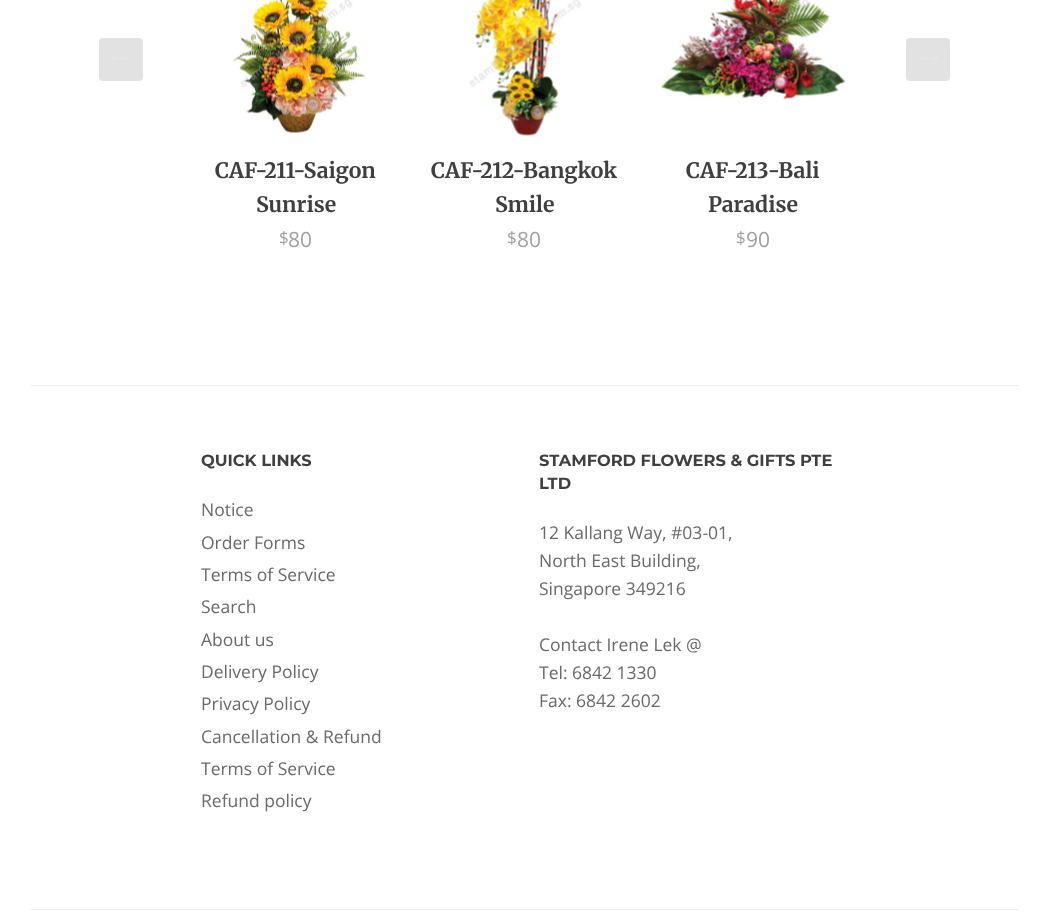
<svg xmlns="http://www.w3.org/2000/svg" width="1048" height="923">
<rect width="100%" height="100%" fill="#fff"/>
<rect x="99" y="38" width="44" height="43" rx="4" fill="#e2e2e2"/>
<image x="111" y="52" width="21" height="10" href="media/1.png"/>
<rect x="906" y="38" width="44" height="43" rx="4" fill="#e2e2e2"/>
<image x="917" y="51" width="21" height="15" href="media/2.png"/>
<image x="233" y="0" width="133" height="134" href="media/3.png"/>
<text x="215" y="178" style="font-family:Merriweather;font-size:21.25px;font-weight:300;fill:#403f3f">CAF-211-Saigon</text>
<text x="256" y="212" style="font-family:Merriweather;font-size:21.25px;font-weight:300;fill:#403f3f">Sunrise</text>
<text x="279" y="244" style="font-family:Open Sans;font-size:17px;fill:#a1a1a1">$</text>
<text x="288" y="247" style="font-family:Open Sans;font-size:21px;fill:#a1a1a1">80</text>
<image x="469" y="0" width="113" height="136" href="media/4.png"/>
<text x="431" y="178" style="font-family:Merriweather;font-size:21.25px;font-weight:300;fill:#403f3f">CAF-212-Bangkok</text>
<text x="495" y="212" style="font-family:Merriweather;font-size:21.25px;font-weight:300;fill:#403f3f">Smile</text>
<text x="507" y="244" style="font-family:Open Sans;font-size:17px;fill:#a1a1a1">$</text>
<text x="517" y="247" style="font-family:Open Sans;font-size:21px;fill:#a1a1a1">80</text>
<image x="661" y="0" width="185" height="100" href="media/5.png"/>
<text x="686" y="178" style="font-family:Merriweather;font-size:21.25px;font-weight:300;fill:#403f3f">CAF-213-Bali</text>
<text x="708" y="212" style="font-family:Merriweather;font-size:21.25px;font-weight:300;fill:#403f3f">Paradise</text>
<text x="736" y="244" style="font-family:Open Sans;font-size:17px;fill:#a1a1a1">$</text>
<text x="746" y="247" style="font-family:Open Sans;font-size:21px;fill:#a1a1a1">90</text>
<rect x="31" y="385" width="987" height="1" fill="#ebebeb"/>
<text x="201" y="466" style="font-family:Montserrat;font-size:16.25px;font-weight:100;fill:#403f3f">QUICK LINKS</text>
<text x="201" y="516" style="font-family:Open Sans;font-size:17.5px;fill:#696969">Notice</text>
<text x="201" y="549" style="font-family:Open Sans;font-size:17.5px;fill:#696969">Order Forms</text>
<text x="201" y="581" style="font-family:Open Sans;font-size:17.5px;fill:#696969">Terms of Service</text>
<text x="201" y="613" style="font-family:Open Sans;font-size:17.5px;fill:#696969">Search</text>
<text x="201" y="646" style="font-family:Open Sans;font-size:17.5px;fill:#696969">About us</text>
<text x="201" y="678" style="font-family:Open Sans;font-size:17.5px;fill:#696969">Delivery Policy</text>
<text x="201" y="710" style="font-family:Open Sans;font-size:17.5px;fill:#696969">Privacy Policy</text>
<text x="201" y="743" style="font-family:Open Sans;font-size:17.5px;fill:#696969">Cancellation &amp; Refund</text>
<text x="201" y="775" style="font-family:Open Sans;font-size:17.5px;fill:#696969">Terms of Service</text>
<text x="201" y="807" style="font-family:Open Sans;font-size:17.5px;fill:#696969">Refund policy</text>
<text x="539" y="466" style="font-family:Montserrat;font-size:16.25px;font-weight:100;fill:#403f3f">STAMFORD FLOWERS &amp; GIFTS PTE</text>
<text x="539" y="489" style="font-family:Montserrat;font-size:16.25px;font-weight:100;fill:#403f3f">LTD</text>
<text x="539" y="539" style="font-family:Open Sans;font-size:17.5px;fill:#696969">12 Kallang Way, #03-01,</text>
<text x="539" y="567" style="font-family:Open Sans;font-size:17.5px;fill:#696969">North East Building,</text>
<text x="539" y="595" style="font-family:Open Sans;font-size:17.5px;fill:#696969">Singapore 349216</text>
<text x="539" y="651" style="font-family:Open Sans;font-size:17.5px;fill:#696969">Contact Irene Lek @</text>
<text x="539" y="679" style="font-family:Open Sans;font-size:17.5px;fill:#696969">Tel: 6842 1330</text>
<text x="539" y="707" style="font-family:Open Sans;font-size:17.5px;fill:#696969">Fax: 6842 2602</text>
<rect x="31" y="909" width="987" height="1" fill="#ebebeb"/>
</svg>
